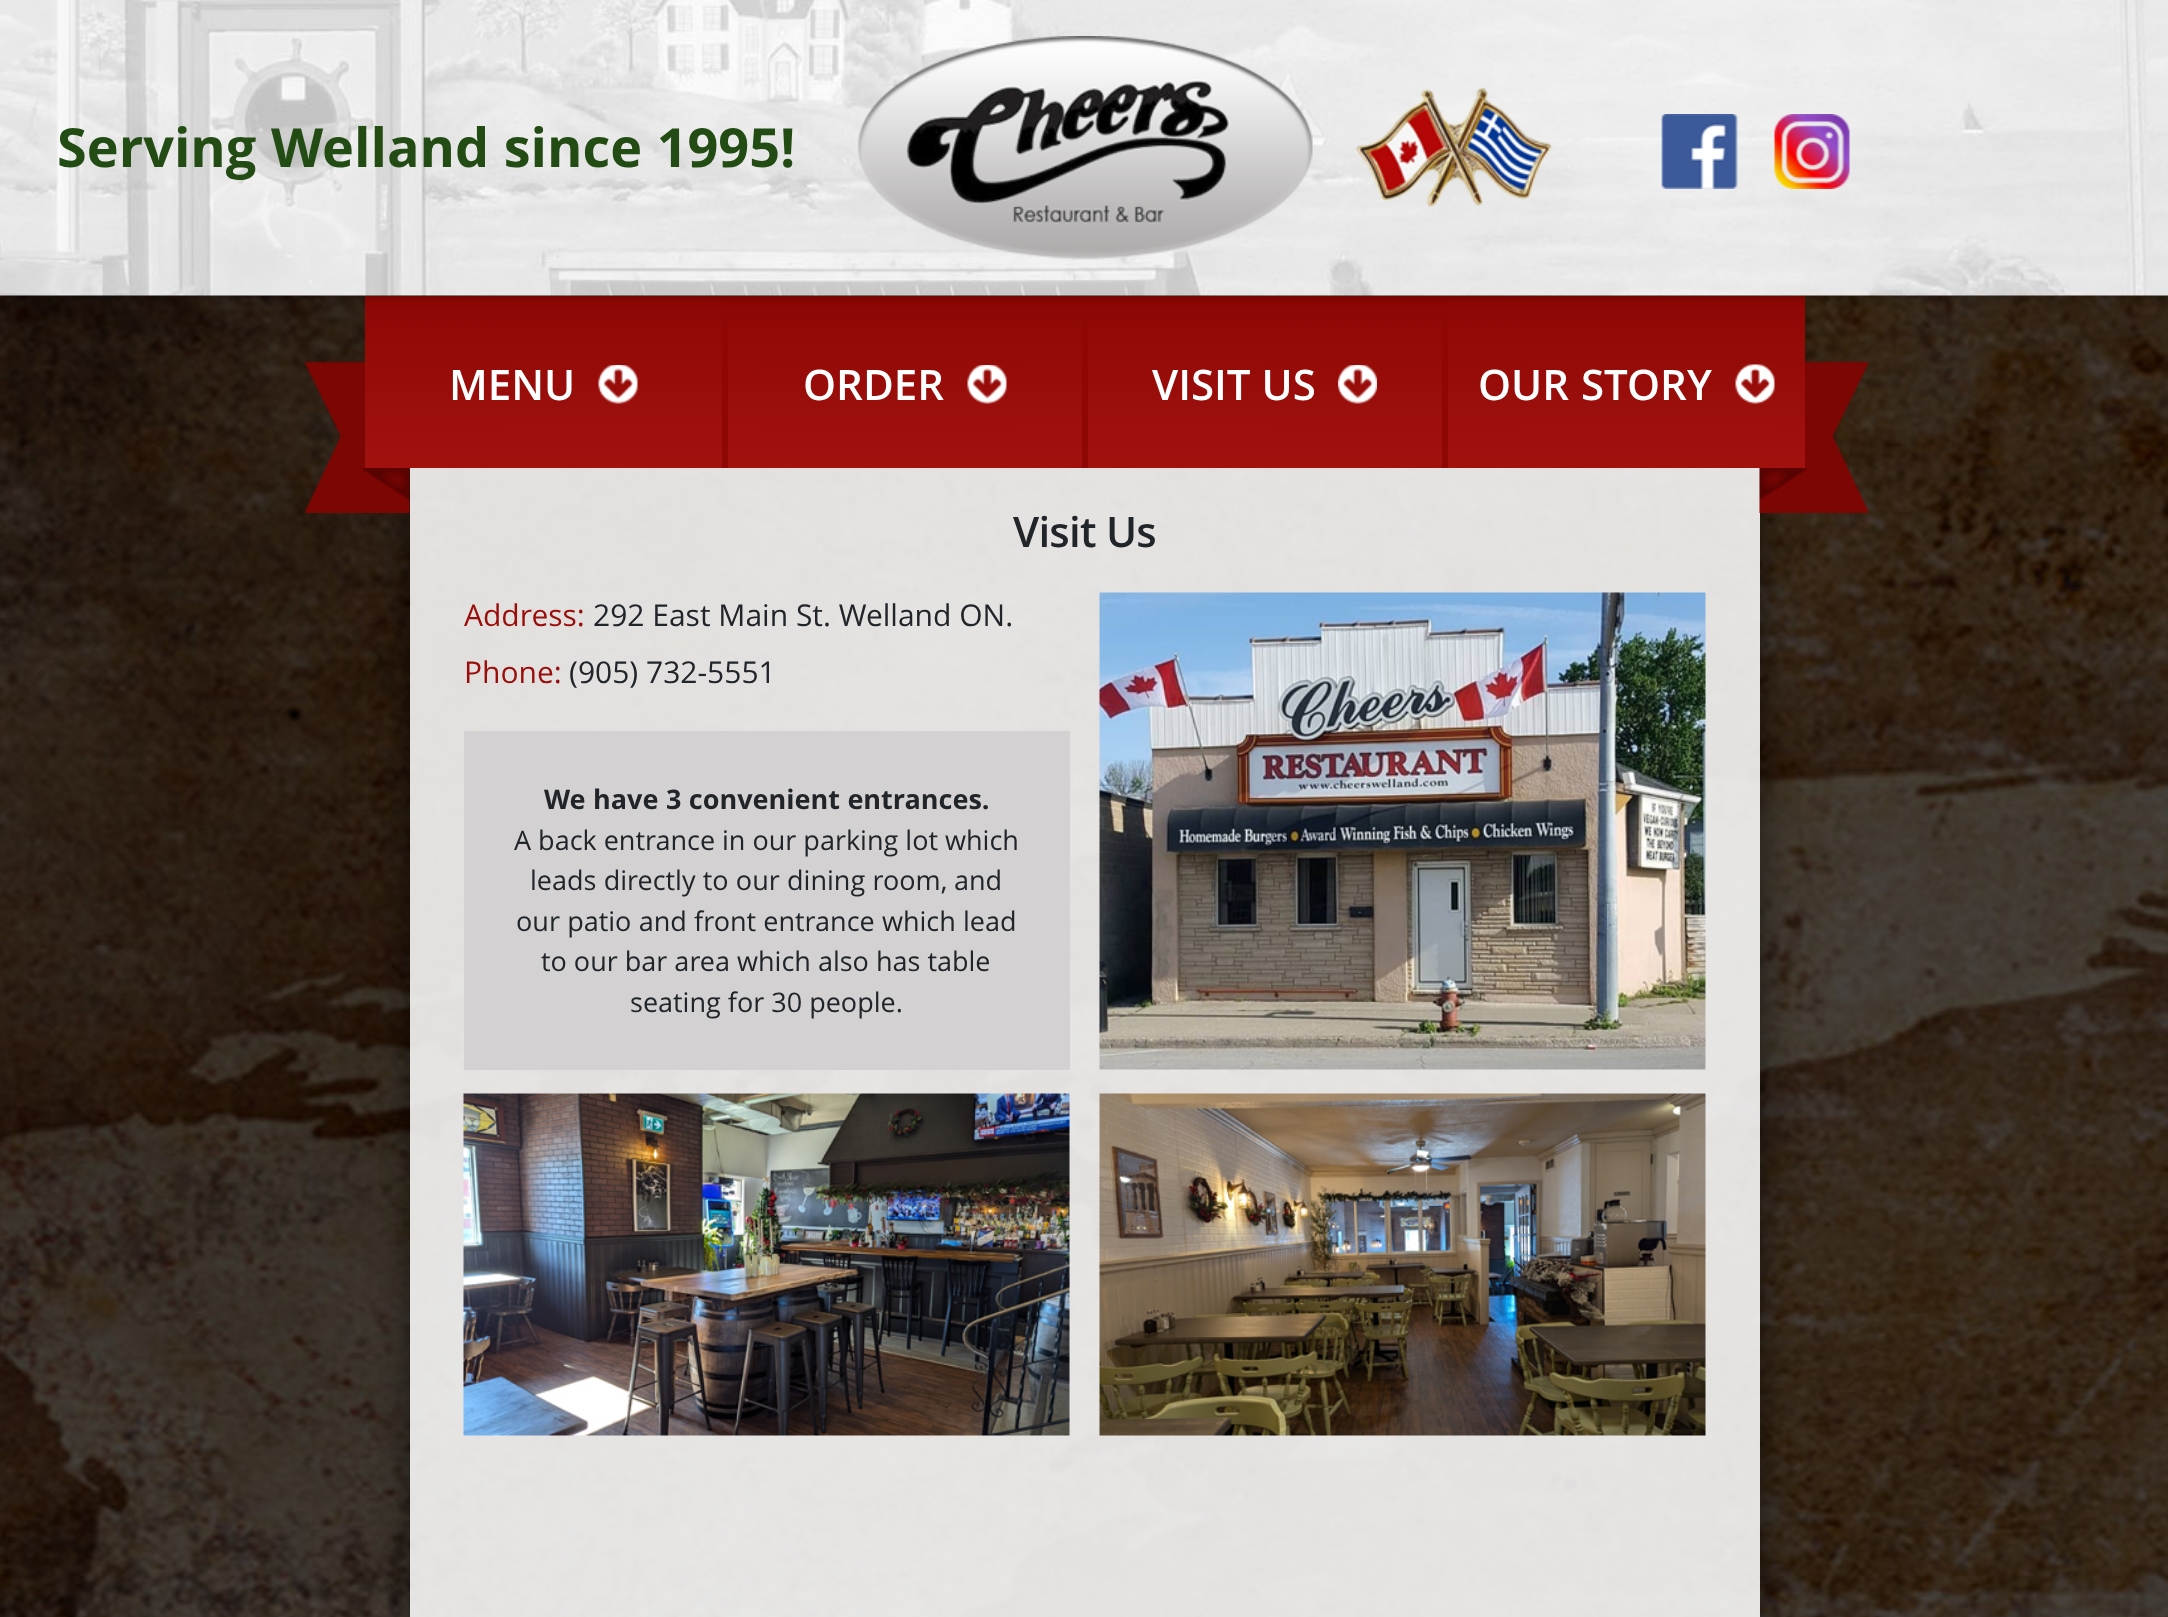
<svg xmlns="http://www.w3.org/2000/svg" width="2168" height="1617">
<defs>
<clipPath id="clip1"><path d="M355 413h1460v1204h-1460zm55 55h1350v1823h-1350z" clip-rule="evenodd"/></clipPath>
<linearGradient id="g1" gradientUnits="userSpaceOnUse" x1="543" y1="296" x2="543" y2="468"><stop offset="0" stop-color="#8e0704"/><stop offset="1" stop-color="#a1120f"/></linearGradient>
<linearGradient id="g2" gradientUnits="userSpaceOnUse" x1="1626" y1="296" x2="1626" y2="468"><stop offset="0" stop-color="#8e0704"/><stop offset="1" stop-color="#a1120f"/></linearGradient>
<linearGradient id="g3" gradientUnits="userSpaceOnUse" x1="905" y1="296" x2="905" y2="468"><stop offset="0" stop-color="#8e0704"/><stop offset="1" stop-color="#a1120f"/></linearGradient>
<linearGradient id="g4" gradientUnits="userSpaceOnUse" x1="1265" y1="296" x2="1265" y2="468"><stop offset="0" stop-color="#8e0704"/><stop offset="1" stop-color="#a1120f"/></linearGradient>
</defs>
<rect width="100%" height="100%" fill="#fff"/>
<image x="0" y="295" width="2168" height="1322" href="media/1.png"/>
<g clip-path="url(#clip1)">
<rect x="410" y="468" width="1350" height="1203" fill="#00000099" filter="blur(18px)"/>
</g>
<rect x="722" y="296" width="726" height="172" fill="#8e0704"/>
<image x="304" y="361" width="106" height="152" href="media/6.png"/>
<rect x="365" y="296" width="357" height="172" fill="url(#g1)"/>
<rect x="410" y="468" width="1350" height="1149" fill="#ffffffde"/>
<image x="1759" y="361" width="110" height="152" href="media/10.png"/>
<rect x="1448" y="296" width="357" height="172" fill="url(#g2)"/>
<rect y="2" width="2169" height="295" fill="#0000004d" filter="blur(5px)"/>
<image x="0" y="0" width="2168" height="296" href="media/2.png"/>
<text x="57" y="167" word-spacing="0.5" style="font-family:Open Sans;font-size:54px;font-weight:bold;fill:#224c13">Serving Welland since 1995!</text>
<image x="857" y="36" width="456" height="224" href="media/3.png"/>
<image x="1661" y="114" width="77" height="75" href="media/4.png"/>
<image x="1774" y="114" width="76" height="75" href="media/5.png"/>
<text x="449" y="400" style="font-family:Open Sans;font-size:42px;font-weight:600;fill:#fff">MENU</text>
<image x="598" y="365" width="40" height="39" href="media/7.png"/>
<rect x="728" y="319" width="354" height="149" fill="url(#g3)"/>
<text x="803" y="400" style="font-family:Open Sans;font-size:42px;font-weight:600;fill:#fff">ORDER</text>
<image x="967" y="365" width="40" height="39" href="media/7.png"/>
<rect x="1088" y="319" width="354" height="149" fill="url(#g4)"/>
<text x="1152" y="400" style="font-family:Open Sans;font-size:42px;font-weight:600;fill:#fff">VISIT US</text>
<image x="1338" y="365" width="39" height="39" href="media/8.png"/>
<text x="1478" y="400" word-spacing="1" style="font-family:Open Sans;font-size:42px;font-weight:600;fill:#fff">OUR STORY</text>
<image x="1735" y="364" width="40" height="40" href="media/9.png"/>
<text x="1013" y="547" style="font-family:Open Sans;font-size:42px;font-weight:600;letter-spacing:-0.75px;fill:#212529">Visit Us</text>
<text x="464" y="626" style="font-family:Open Sans;font-size:30px;fill:#990d0a">Address:</text>
<text x="593" y="626" style="font-family:Open Sans;font-size:30px;fill:#212529">292 East Main St. Welland ON.</text>
<text x="464" y="683" style="font-family:Open Sans;font-size:30px;fill:#990d0a">Phone:</text>
<text x="569" y="683" style="font-family:Open Sans;font-size:30px;fill:#212529">(905) 732-5551</text>
<rect x="464" y="731" width="606" height="339" fill="#d3d1d2"/>
<text x="544" y="809" word-spacing="0.5" style="font-family:Open Sans;font-size:27px;font-weight:bold;fill:#212529">We have 3 convenient entrances.</text>
<text x="514" y="850" style="font-family:Open Sans;font-size:27px;fill:#212529">A back entrance in our parking lot which</text>
<text x="530" y="890" word-spacing="0.25" style="font-family:Open Sans;font-size:27px;fill:#212529">leads directly to our dining room,</text>
<text x="954" y="890" style="font-family:Open Sans;font-size:27px;fill:#212529">and</text>
<text x="516" y="931" word-spacing="0.25" style="font-family:Open Sans;font-size:27px;fill:#212529">our patio and front entrance which lead</text>
<text x="541" y="971" style="font-family:Open Sans;font-size:27px;fill:#212529">to our bar area which also has table</text>
<text x="630" y="1012" style="font-family:Open Sans;font-size:27px;fill:#212529">seating for 30 people.</text>
<image x="1099" y="592" width="607" height="478" href="media/11.png"/>
<image x="463" y="1093" width="607" height="343" href="media/12.png"/>
<image x="1099" y="1093" width="607" height="343" href="media/13.png"/>
</svg>
